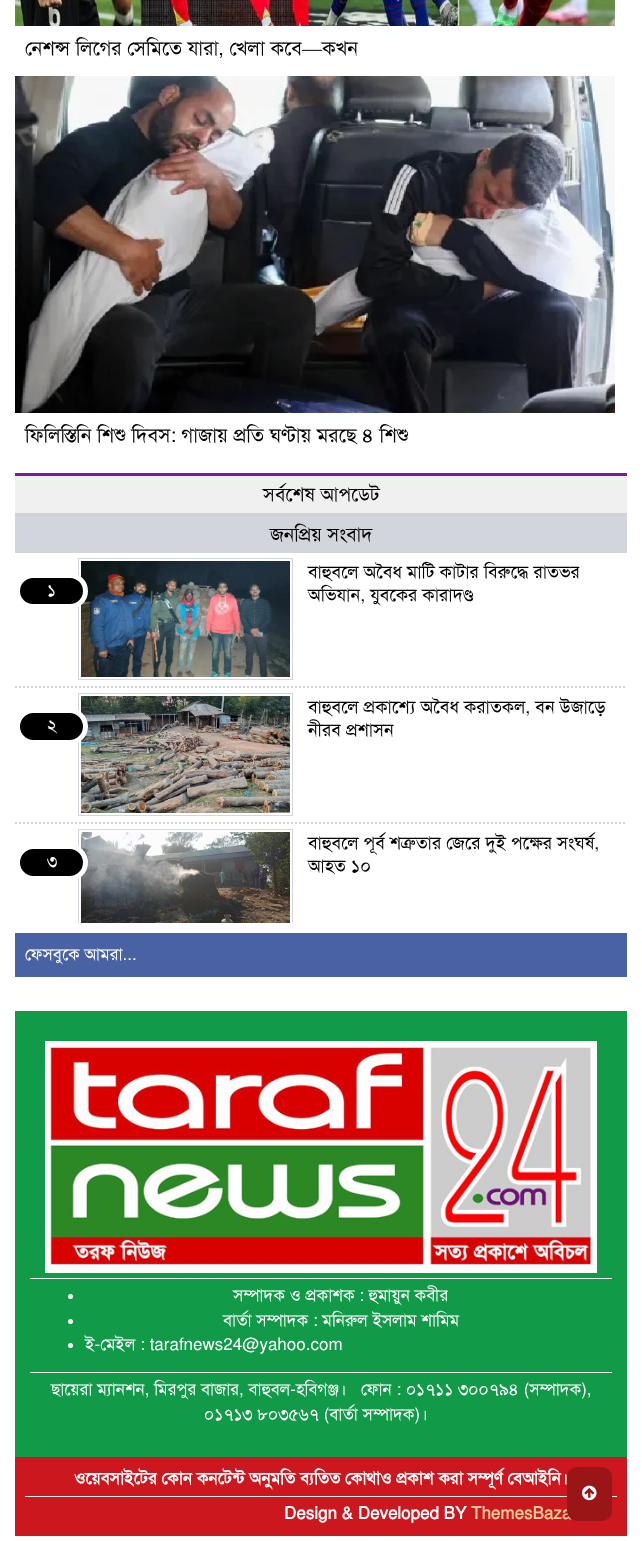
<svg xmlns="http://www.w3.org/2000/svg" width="642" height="1541">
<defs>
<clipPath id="clip1"><rect x="15" y="824" width="612" height="99"/></clipPath>
</defs>
<rect width="100%" height="100%" fill="#fff"/>
<image x="15" y="0" width="600" height="26" href="media/1.png"/>
<text x="25" y="55" style="font-family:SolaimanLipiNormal;font-size:20px;fill:#000">নেশন্স লিগের সেমিতে যারা, খেলা কবে</text>
<text x="302" y="55" style="font-family:Liberation Serif;font-size:20px;fill:#000">—</text>
<text x="322" y="55" style="font-family:SolaimanLipiNormal;font-size:20px;fill:#000">কখন</text>
<image x="15" y="76" width="600" height="337" href="media/2.png"/>
<text x="25" y="442" style="font-family:SolaimanLipiNormal;font-size:20px;fill:#000">ফিলিস্তিনি শিশু দিবস: গাজায় প্রতি ঘণ্টায় মরছে ৪ শিশু</text>
<rect x="15" y="516" width="612" height="37" fill="#d2d5db"/>
<rect x="15" y="476" width="612" height="37" fill="#f0f0f0"/>
<rect x="15" y="473" width="612" height="3" fill="#7719aa"/>
<text x="263" y="501" style="font-family:SolaimanLipiNormal;font-size:19.5px;fill:#000">সর্বশেষ আপডেট</text>
<rect x="15" y="513" width="612" height="3" fill="#d2d2d2"/>
<text x="270" y="541" style="font-family:SolaimanLipiNormal;font-size:19.5px;fill:#000">জনপ্রিয় সংবাদ</text>
<path d="M15 687h612" fill="none" stroke="#cfd3d5" stroke-width="2" stroke-dasharray="2 2"/>
<rect x="78.5" y="558.5" width="214" height="121" fill="none" stroke="#d2d5db"/>
<image x="81" y="561" width="209" height="116" href="media/3.png"/>
<rect x="17.5" y="575.5" width="68" height="31" rx="15.5" fill="#000" stroke="#fff" stroke-width="5"/>
<text x="47" y="596" style="font-family:SolaimanLipiNormal;font-size:17px;fill:#fff">১</text>
<text x="308" y="578" style="font-family:SolaimanLipiNormal;font-size:18px;fill:#000">বাহুবলে অবৈধ মাটি কাটার বিরুদ্ধে রাতভর</text>
<text x="308" y="601" style="font-family:SolaimanLipiNormal;font-size:18px;fill:#000">অভিযান, যুবকের কারাদণ্ড</text>
<path d="M15 823h612" fill="none" stroke="#cfd3d5" stroke-width="2" stroke-dasharray="2 2"/>
<rect x="78.5" y="693.5" width="214" height="122" fill="none" stroke="#d2d5db"/>
<image x="81" y="696" width="209" height="117" href="media/4.png"/>
<rect x="17.5" y="710.5" width="68" height="32" rx="16" fill="#000" stroke="#fff" stroke-width="5"/>
<text x="47" y="731" style="font-family:SolaimanLipiNormal;font-size:17px;fill:#fff">২</text>
<text x="308" y="713" style="font-family:SolaimanLipiNormal;font-size:18px;fill:#000">বাহুবলে প্রকাশ্যে অবৈধ করাতকল, বন উজাড়ে</text>
<text x="308" y="736" style="font-family:SolaimanLipiNormal;font-size:18px;fill:#000">নীরব প্রশাসন</text>
<rect x="15" y="933" width="612" height="44" fill="#4862a3"/>
<text x="25" y="960" style="font-family:SolaimanLipiNormal;font-size:17px;fill:#fff">ফেসবুকে আমরা...</text>
<g clip-path="url(#clip1)">
<rect x="78.5" y="829.5" width="214" height="122" fill="none" stroke="#d2d5db"/>
</g>
<image x="81" y="832" width="209" height="91" href="media/5.png"/>
<rect x="17.5" y="846.5" width="68" height="32" rx="16" fill="#000" stroke="#fff" stroke-width="5"/>
<text x="47" y="867" style="font-family:SolaimanLipiNormal;font-size:17px;fill:#fff">৩</text>
<text x="308" y="849" style="font-family:SolaimanLipiNormal;font-size:18px;fill:#000">বাহুবলে পূর্ব শত্রুতার জেরে দুই পক্ষের সংঘর্ষ,</text>
<text x="308" y="872" style="font-family:SolaimanLipiNormal;font-size:18px;fill:#000">আহত ১০</text>
<rect x="15" y="1011" width="612" height="446" fill="#119b48"/>
<rect x="30" y="1278" width="582" height="1" fill="#f0f0f0"/>
<image x="45" y="1041" width="552" height="232" href="media/6.png"/>
<rect x="30" y="1372" width="582" height="1" fill="#f0f0f0"/>
<circle cx="70.5" cy="1296.5" r="2.5" fill="#fff"/>
<text x="233" y="1301" style="font-family:SolaimanLipiNormal;font-size:17px;fill:#fff">সম্পাদক ও প্রকাশক : হুমায়ুন কবীর</text>
<circle cx="70.5" cy="1321.5" r="2.5" fill="#fff"/>
<text x="223" y="1326" style="font-family:SolaimanLipiNormal;font-size:17px;fill:#fff">বার্তা সম্পাদক : মনিরুল ইসলাম শামিম</text>
<circle cx="70.5" cy="1345.5" r="2.5" fill="#fff"/>
<text x="85" y="1350" style="font-family:SolaimanLipiNormal;font-size:17px;fill:#fff">ই-মেইল : tarafnews24@yahoo.com</text>
<text x="51" y="1395" style="font-family:SolaimanLipiNormal;font-size:17px;fill:#fff">ছায়েরা ম্যানশন, মিরপুর বাজার, বাহুবল-হবিগঞ্জ।</text>
<text x="361" y="1395" style="font-family:SolaimanLipiNormal;font-size:17px;fill:#fff">ফোন : ০১৭১১ ৩০০৭৯৪ (সম্পাদক),</text>
<text x="204" y="1420" style="font-family:SolaimanLipiNormal;font-size:17px;fill:#fff">০১৭১৩ ৮০৩৫৬৭ (বার্তা সম্পাদক)।</text>
<rect x="15" y="1457" width="612" height="79" fill="#cc171e"/>
<rect x="25" y="1496" width="592" height="1" fill="#f0f0f0"/>
<text x="74" y="1484" style="font-family:SolaimanLipiNormal;font-size:17px;font-weight:bold;fill:#fff">ওয়েবসাইটের কোন কনটেন্ট অনুমতি ব্যতিত কোথাও প্রকাশ করা সম্পূর্ণ বেআইনি।</text>
<text x="284" y="1519" style="font-family:SolaimanLipiNormal;font-size:17px;font-weight:bold;fill:#fff">Design &amp; Developed BY</text>
<text x="471" y="1519" style="font-family:SolaimanLipiNormal;font-size:17px;font-weight:bold;fill:#eec995">ThemesBaza</text>
<rect x="567" y="1467" width="45" height="54" rx="10" fill="#9a1515"/>
<image x="582" y="1485" width="15" height="16" href="media/7.png"/>
</svg>
